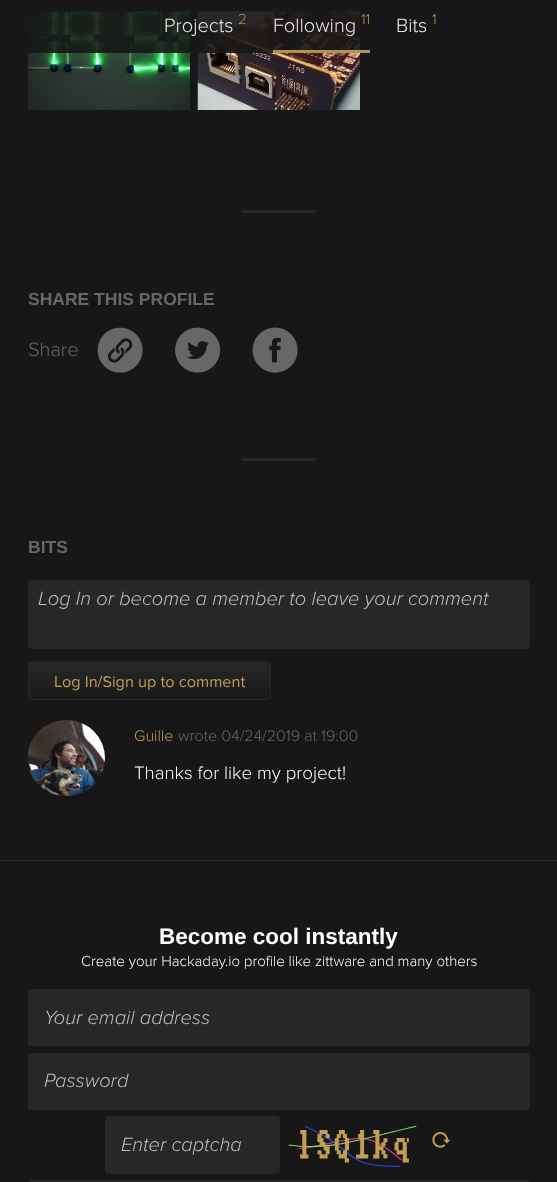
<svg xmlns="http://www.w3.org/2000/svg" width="557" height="1182">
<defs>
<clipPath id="clip1"><rect x="28" y="661" width="243" height="39" rx="4"/></clipPath>
<linearGradient id="g1" gradientUnits="userSpaceOnUse" x1="149" y1="626" x2="149" y2="663"><stop offset="0" stop-color="#272727"/><stop offset="1" stop-color="#1a1a1a"/></linearGradient>
<linearGradient id="g2" gradientUnits="userSpaceOnUse" x1="149" y1="663" x2="149" y2="699"><stop offset="0" stop-color="#272727"/><stop offset="1" stop-color="#1a1a1a"/></linearGradient>
<clipPath id="clip2"><rect x="28" y="1180" width="502" height="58" rx="4"/></clipPath>
<linearGradient id="g3" gradientUnits="userSpaceOnUse" x1="279" y1="1181" x2="279" y2="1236"><stop offset="0" stop-color="#272727"/><stop offset="1" stop-color="#1a1a1a"/></linearGradient>
</defs>
<rect width="100%" height="100%" fill="#171717"/>
<rect x="28" y="11" width="162" height="1" fill="#272727"/>
<image x="27" y="11" width="163" height="99" href="media/1.png"/>
<rect x="198" y="11" width="162" height="1" fill="#272727"/>
<image x="197" y="11" width="163" height="99" href="media/2.png"/>
<rect x="28" y="11" width="332" height="42" fill="#171717e6"/>
<text x="164" y="32" style="font-family:Proxima Nova;font-size:20px;font-weight:300;fill:#e9e9e9">Projects</text>
<text x="238" y="24" style="font-family:Proxima Nova;font-size:15px;font-weight:300;fill:#b29350">2</text>
<rect x="273" y="50" width="97" height="3" fill="#c19f54e6"/>
<text x="273" y="32" style="font-family:Proxima Nova;font-size:20px;font-weight:300;fill:#e9e9e9">Following</text>
<text x="361" y="24" style="font-family:Proxima Nova;font-size:15px;font-weight:300;fill:#b29350">11</text>
<text x="396" y="32" style="font-family:Proxima Nova;font-size:20px;font-weight:300;fill:#e9e9e9">Bits</text>
<text x="432" y="24" style="font-family:Proxima Nova;font-size:15px;font-weight:300;fill:#b29350">1</text>
<rect x="241" y="210" width="75" height="3" fill="#272727"/>
<text x="28" y="305" style="font-family:Liberation Sans;font-size:17.5px;font-weight:bold;fill:#676767">SHARE THIS PROFILE</text>
<text x="28" y="356" style="font-family:Proxima Nova;font-size:20px;font-weight:300;fill:#676767">Share</text>
<image x="97" y="327" width="46" height="46" href="media/3.png"/>
<image x="175" y="327" width="46" height="46" href="media/4.png"/>
<image x="252" y="327" width="46" height="46" href="media/5.png"/>
<rect x="241" y="458" width="75" height="3" fill="#272727"/>
<text x="28" y="553" style="font-family:Liberation Sans;font-size:17.5px;font-weight:bold;fill:#676767">BITS</text>
<rect x="28" y="580" width="502" height="69" rx="4" fill="#272727"/>
<text x="38" y="605" style="font-family:Proxima Nova;font-size:20px;font-weight:300;font-style:italic;fill:#bfbfbf">Log In or become a member to leave your comment</text>
<g clip-path="url(#clip1)">
<rect x="28" y="661" width="243" height="2" fill="url(#g1)"/>
<rect x="28" y="663" width="243" height="36" fill="url(#g2)"/>
</g>
<rect x="28.5" y="661.5" width="242" height="38" rx="3.5" fill="none" stroke="#272727"/>
<text x="54" y="687" style="font-family:Proxima Nova;font-size:16.25px;fill:#c19f54">Log In/Sign up to comment</text>
<image x="28" y="720" width="77" height="77" href="media/6.png"/>
<text x="134" y="741" style="font-family:Proxima Nova;font-size:16px;font-weight:300;fill:#c19f54">Guille</text>
<text x="178" y="741" style="font-family:Proxima Nova;font-size:16px;font-weight:300;fill:#676767">wrote 04/24/2019 at 19:00</text>
<text x="134" y="779" style="font-family:Proxima Nova;font-size:18.75px;font-weight:300;fill:#fff">Thanks for like my project!</text>
<rect y="860" width="557" height="1" fill="#272727"/>
<text x="159" y="944" style="font-family:Liberation Sans;font-size:22.5px;font-weight:bold;fill:#fff">Become cool instantly</text>
<text x="81" y="966" style="font-family:Proxima Nova;font-size:15px;font-weight:300;fill:#fff">Create your Hackaday.io profile like zittware and many others</text>
<rect x="28" y="989" width="502" height="57" rx="4" fill="#272727"/>
<text x="44" y="1024" style="font-family:Proxima Nova;font-size:20px;font-weight:300;font-style:italic;fill:#bfbfbf">Your email address</text>
<rect x="28" y="1053" width="502" height="57" rx="4" fill="#272727"/>
<text x="44" y="1087" style="font-family:Proxima Nova;font-size:20px;font-weight:300;font-style:italic;fill:#bfbfbf">Password</text>
<rect x="105" y="1116" width="175" height="58" rx="4" fill="#272727"/>
<text x="121" y="1151" style="font-family:Proxima Nova;font-size:20px;font-weight:300;font-style:italic;fill:#bfbfbf">Enter captcha</text>
<image x="288" y="1125" width="129" height="42" href="media/7.png"/>
<image x="432" y="1132" width="19" height="16" href="media/8.png"/>
<g clip-path="url(#clip2)">
<rect x="28" y="1181" width="502" height="1" fill="url(#g3)"/>
</g>
<rect x="28.5" y="1180.5" width="501" height="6" rx="3.5" fill="none" stroke="#272727"/>
</svg>
